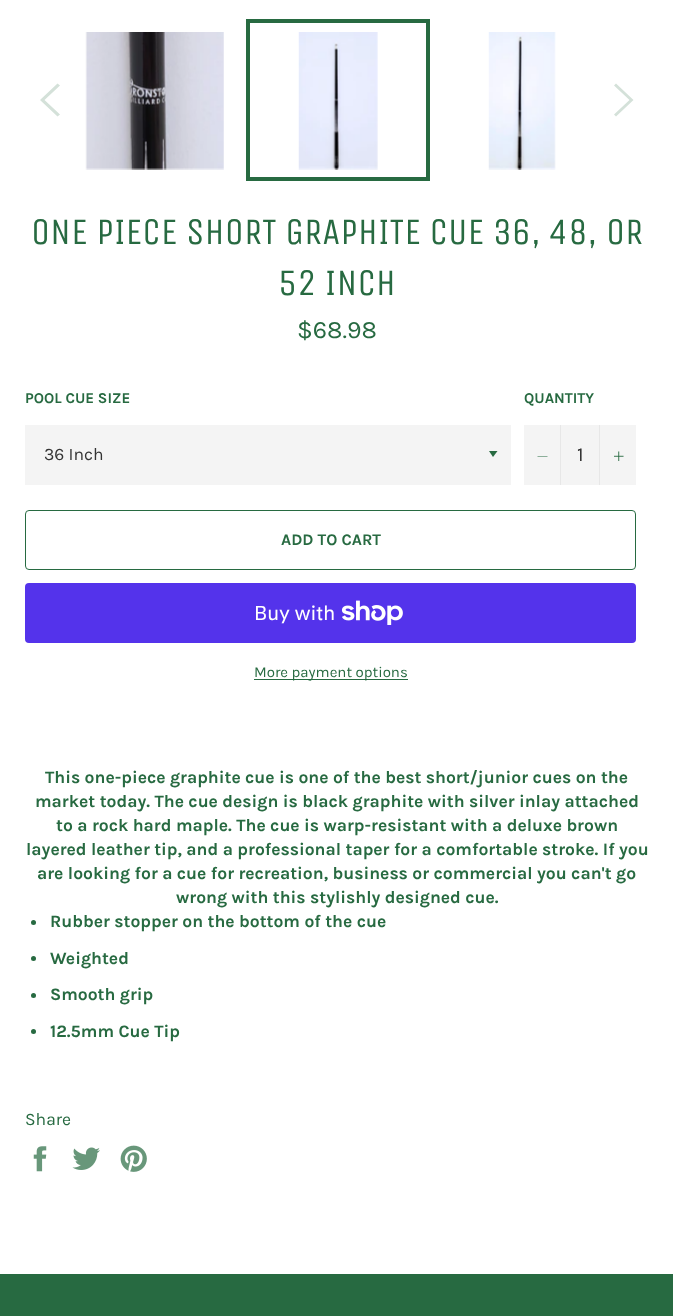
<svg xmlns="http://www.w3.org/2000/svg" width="673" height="1316">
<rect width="100%" height="100%" fill="#fff"/>
<path d="M60 114.5l-2.5 2l-17.5-16.5l17.5-16.5l2.5 2l-15.5 14.5z" fill="#d4e1d9"/>
<image x="85" y="32" width="139" height="138" href="media/1.png"/>
<image x="298" y="32" width="80" height="138" href="media/2.png"/>
<rect x="248" y="21" width="180" height="158" fill="none" stroke="#276a41" stroke-width="4"/>
<image x="488" y="32" width="68" height="138" href="media/3.png"/>
<path d="M614 85.5l2-2l17.5 16.5l-17.5 16.5l-2-2l15.5-14.5z" fill="#d4e1d9"/>
<text x="31" y="244" style="font-family:Unica One;font-size:37.5px;fill:#276a41">ONE PIECE SHORT GRAPHITE CUE 36, 48, OR</text>
<text x="278" y="295" style="font-family:Unica One;font-size:37.5px;fill:#276a41">52 INCH</text>
<text x="297" y="338" style="font-family:Karla;font-size:25px;fill:#276a41">$68.98</text>
<text x="25" y="403" style="font-family:Karla;font-size:15px;font-weight:bold;fill:#276a41">POOL CUE SIZE</text>
<rect x="25" y="425" width="486" height="60" fill="#f4f4f4"/>
<path d="M489 451l4 6l4.5-6z" fill="#276a41"/>
<text x="44" y="460" style="font-family:Karla;font-size:17.5px;fill:#333">36 Inch</text>
<text x="524" y="403" style="font-family:Karla;font-size:15px;font-weight:bold;fill:#276a41">QUANTITY</text>
<rect x="524" y="425" width="112" height="60" fill="#f4f4f4"/>
<rect x="560" y="425" width="1" height="60" fill="#e7e7e7"/>
<path d="M547.5 456v.5h-10v-.5z" fill="#276a41" fill-rule="evenodd"/>
<text x="577" y="461" style="font-family:Karla;font-size:20px;fill:#333">1</text>
<rect x="599" y="425" width="1" height="60" fill="#e7e7e7"/>
<image x="614" y="451" width="10" height="10" href="media/4.png"/>
<rect x="25.5" y="510.5" width="610" height="59" rx="3.5" fill="none" stroke="#276a41"/>
<text x="281" y="545" style="font-family:Karla;font-size:16.25px;font-weight:bold;fill:#276a41">ADD TO CART</text>
<rect x="25" y="583" width="611" height="60" rx="4" fill="#5433eb"/>
<text x="254" y="620" style="font-family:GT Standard;font-size:20px;fill:#fff">Buy with</text>
<image x="341" y="600" width="62" height="25" href="media/5.png"/>
<rect x="254" y="679" width="154" height="1" fill="#276a41"/>
<text x="254" y="677" style="font-family:Karla;font-size:15px;fill:#276a41">More payment options</text>
<text x="45" y="783" style="font-family:Karla;font-size:17.5px;font-weight:bold;fill:#276a41">This one-piece graphite cue is one of the best short/junior cues on the</text>
<text x="35" y="807" style="font-family:Karla;font-size:17.5px;font-weight:bold;fill:#276a41">market today. The cue design is black graphite with silver inlay attached</text>
<text x="56" y="831" style="font-family:Karla;font-size:17.5px;font-weight:bold;fill:#276a41">to a rock hard maple. The cue is warp-resistant with a deluxe brown</text>
<text x="26" y="855" style="font-family:Karla;font-size:17.5px;font-weight:bold;fill:#276a41">layered leather tip, and a professional taper for a comfortable stroke. If you</text>
<text x="37" y="879" style="font-family:Karla;font-size:17.5px;font-weight:bold;fill:#276a41">are looking for a cue for recreation, business or commercial you can't go</text>
<text x="176" y="903" style="font-family:Karla;font-size:17.5px;font-weight:bold;fill:#276a41">wrong with this stylishly designed cue.</text>
<circle cx="33.5" cy="922.5" r="2.5" fill="#276a41"/>
<text x="50" y="927" style="font-family:Karla;font-size:17.5px;font-weight:bold;fill:#276a41">Rubber stopper on the bottom of the cue</text>
<circle cx="33.5" cy="958.5" r="2.5" fill="#276a41"/>
<text x="50" y="964" style="font-family:Karla;font-size:17.5px;font-weight:bold;fill:#276a41">Weighted</text>
<circle cx="33.5" cy="995.5" r="2.5" fill="#276a41"/>
<text x="50" y="1000" style="font-family:Karla;font-size:17.5px;font-weight:bold;fill:#276a41">Smooth grip</text>
<circle cx="33.5" cy="1031.5" r="2.5" fill="#276a41"/>
<text x="50" y="1037" style="font-family:Karla;font-size:17.5px;font-weight:bold;fill:#276a41">12.5mm Cue Tip</text>
<text x="25" y="1125" style="font-family:Karla;font-size:17.5px;fill:#276a41">Share</text>
<image x="33" y="1146" width="14" height="26" href="media/6.png"/>
<image x="72" y="1147" width="28" height="23" href="media/7.png"/>
<image x="120" y="1145" width="27" height="27" href="media/8.png"/>
<rect y="1274" width="673" height="42" fill="#276a41"/>
</svg>
